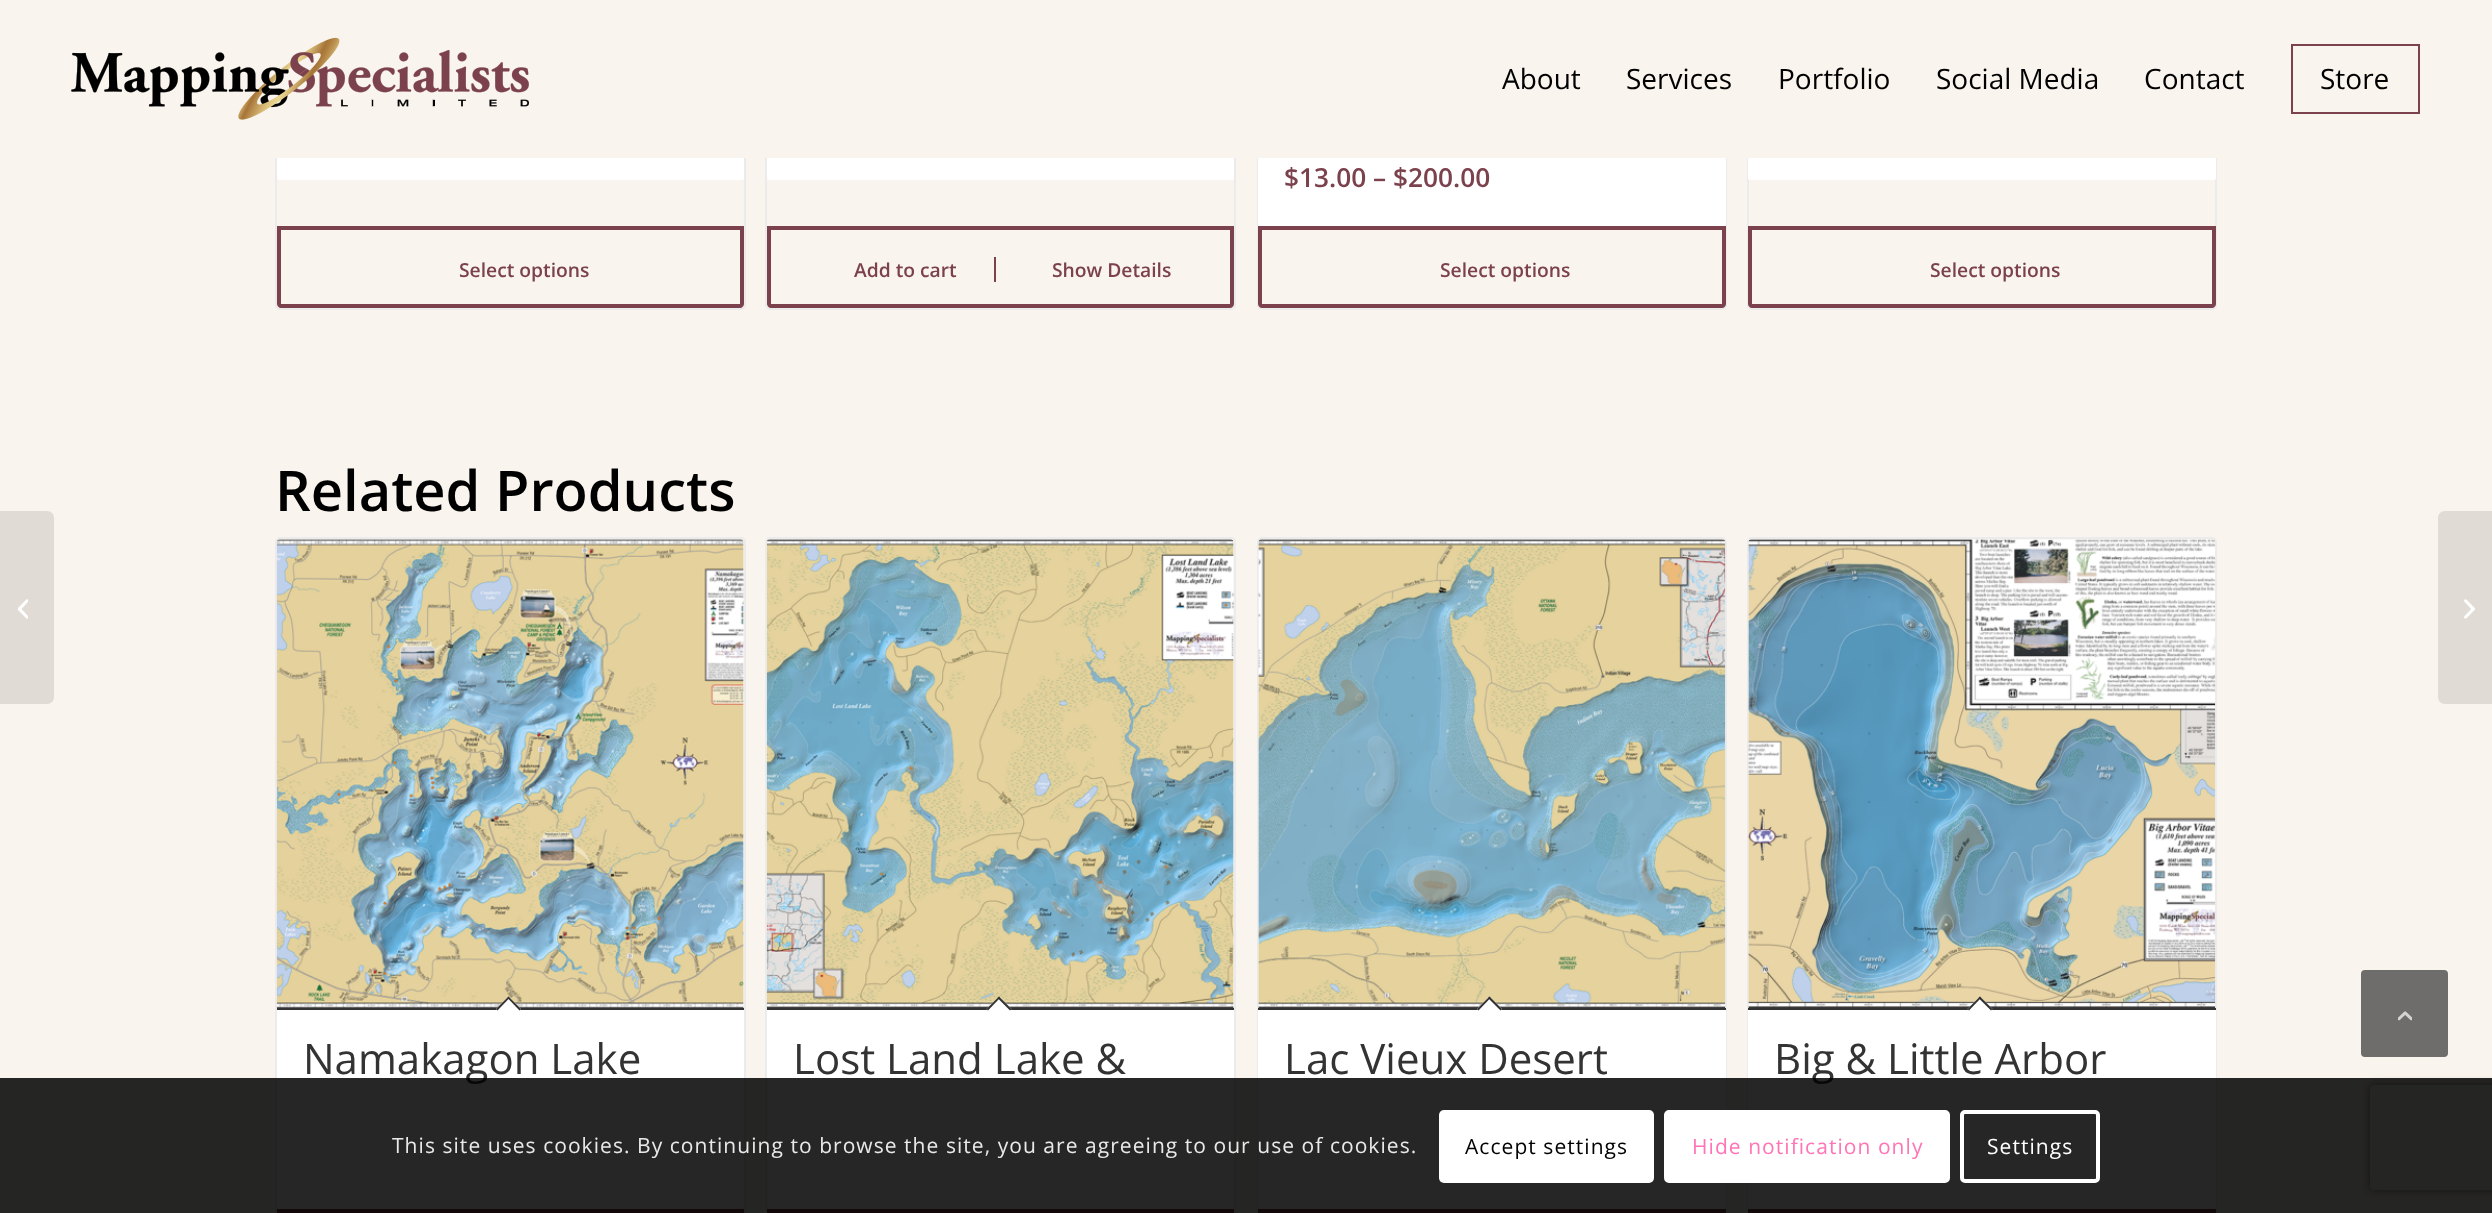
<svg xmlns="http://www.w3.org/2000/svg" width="2492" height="1213">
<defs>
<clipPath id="clip1"><path d="M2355 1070h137v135h-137zm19 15h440c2 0 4 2 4 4v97c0 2-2 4-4 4h-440c-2 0-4-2-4-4v-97c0-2 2-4 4-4z" clip-rule="evenodd"/></clipPath>
</defs>
<rect width="100%" height="100%" fill="#f9f4ed"/>
<rect x="276" y="-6" width="469" height="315" rx="4" fill="none" stroke="#ebebeb" stroke-width="2"/>
<path d="M277-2h467v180c0 1-1 2-2 2h-463c-1 0-2-1-2-2z" fill="#fff"/>
<rect x="766" y="-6" width="469" height="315" rx="4" fill="none" stroke="#ebebeb" stroke-width="2"/>
<path d="M767-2h467v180c0 1-1 2-2 2h-463c-1 0-2-1-2-2z" fill="#fff"/>
<rect x="1258" y="-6" width="468" height="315" rx="4" fill="none" stroke="#ebebeb" stroke-width="2"/>
<path d="M1258-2h468v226c0 1-1 2-2 2h-464c-1 0-2-1-2-2z" fill="#fff"/>
<rect x="1748" y="-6" width="468" height="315" rx="4" fill="none" stroke="#ebebeb" stroke-width="2"/>
<path d="M1748-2h468v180c0 1-1 2-2 2h-464c-1 0-2-1-2-2z" fill="#fff"/>
<rect x="275" width="1942" height="158" fill="#f9f4ed"/>
<image x="71" y="37" width="458" height="83" href="media/1.png"/>
<text x="1502" y="89" style="font-family:Open Sans;font-size:28px;fill:#000">About</text>
<text x="1626" y="89" style="font-family:Open Sans;font-size:28px;fill:#000">Services</text>
<text x="1778" y="89" style="font-family:Open Sans;font-size:28px;fill:#000">Portfolio</text>
<text x="1936" y="89" style="font-family:Open Sans;font-size:28px;fill:#000">Social Media</text>
<text x="2144" y="89" style="font-family:Open Sans;font-size:28px;fill:#000">Contact</text>
<rect x="2292" y="45" width="127" height="68" fill="none" stroke="#7b414c" stroke-width="2"/>
<text x="2320" y="89" style="font-family:Open Sans;font-size:28px;fill:#000">Store</text>
<path d="M0 511h47c4 0 7 3 7 7v179c0 4-3 7-7 7h-47z" fill="#e0dcd5"/>
<image x="18" y="599" width="10" height="20" href="media/2.png"/>
<path d="M277 226v78c0 2 2 4 4 4h459c2 0 4-2 4-4v-78zm4 4v74h459v-74z" fill="#7b414c" fill-rule="evenodd"/>
<text x="459" y="277" style="font-family:Open Sans;font-size:19.25px;font-weight:600;fill:#7b414c">Select options</text>
<path d="M767 226v78c0 2 2 4 4 4h459c2 0 4-2 4-4v-78zm4 4v74h459v-74z" fill="#7b414c" fill-rule="evenodd"/>
<text x="854" y="277" style="font-family:Open Sans;font-size:19.25px;font-weight:600;fill:#7b414c">Add to cart</text>
<rect x="994" y="257" width="2" height="25" fill="#7b414c"/>
<text x="1052" y="277" style="font-family:Open Sans;font-size:19.25px;font-weight:600;fill:#7b414c">Show Details</text>
<text x="1284" y="187" style="font-family:Open Sans;font-size:26.25px;font-weight:600;fill:#7b414c">$13.00 – $200.00</text>
<path d="M1258 226v78c0 2 2 4 4 4h460c2 0 4-2 4-4v-78zm4 4v74h460v-74z" fill="#7b414c" fill-rule="evenodd"/>
<text x="1440" y="277" style="font-family:Open Sans;font-size:19.25px;font-weight:600;fill:#7b414c">Select options</text>
<path d="M1748 226v78c0 2 2 4 4 4h460c2 0 4-2 4-4v-78zm4 4v74h460v-74z" fill="#7b414c" fill-rule="evenodd"/>
<text x="1930" y="277" style="font-family:Open Sans;font-size:19.25px;font-weight:600;fill:#7b414c">Select options</text>
<text x="275" y="511" style="font-family:Open Sans;font-size:56px;font-weight:600;fill:#000">Related Products</text>
<rect x="276" y="538" width="469" height="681" rx="4" fill="none" stroke="#ebebeb" stroke-width="2"/>
<image x="276" y="539" width="468" height="469" href="media/3.png"/>
<path d="M277 1008h467v199c0 1-1 2-2 2h-463c-1 0-2-1-2-2z" fill="#fff"/>
<rect x="277" y="1008" width="467" height="2" fill="#333"/>
<path d="M508.5 996.5l12.5 12.5l-12.5 12.5l-12.5-12.5z" fill="#fff"/>
<path d="M508.5 996.5l12.5 12.5l-1.5 1.5l-12-12.5z" fill="#333"/>
<path d="M508.5 996.5l1 1.5l-12 12.5l-1.5-1.5z" fill="#333"/>
<text x="303" y="1074" style="font-family:Open Sans;font-size:42px;fill:#333">Namakagon Lake</text>
<path d="M277 1209v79c0 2 2 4 4 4h459c2 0 4-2 4-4v-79zm4 4v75h459v-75z" fill="#7b414c" fill-rule="evenodd"/>
<rect x="766" y="538" width="469" height="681" rx="4" fill="none" stroke="#ebebeb" stroke-width="2"/>
<image x="766" y="539" width="468" height="469" href="media/4.png"/>
<path d="M767 1008h467v199c0 1-1 2-2 2h-463c-1 0-2-1-2-2z" fill="#fff"/>
<rect x="767" y="1008" width="467" height="2" fill="#333"/>
<path d="M999 996.5l12.5 12.5l-12.5 12.5l-12.5-12.5z" fill="#fff"/>
<path d="M999 996.5l12.5 12.5l-1.5 1.5l-12.5-12.5z" fill="#333"/>
<path d="M999 996.5l1 1.5l-12 12.5l-1.5-1.5z" fill="#333"/>
<text x="793" y="1074" style="font-family:Open Sans;font-size:42px;fill:#333">Lost Land Lake &amp;</text>
<path d="M767 1209v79c0 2 2 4 4 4h459c2 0 4-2 4-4v-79zm4 4v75h459v-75z" fill="#7b414c" fill-rule="evenodd"/>
<rect x="1258" y="538" width="468" height="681" rx="4" fill="none" stroke="#ebebeb" stroke-width="2"/>
<image x="1258" y="539" width="468" height="469" href="media/5.png"/>
<path d="M1258 1008h468v199c0 1-1 2-2 2h-464c-1 0-2-1-2-2z" fill="#fff"/>
<rect x="1258" y="1008" width="468" height="2" fill="#333"/>
<path d="M1489.5 996.5l12.5 12.5l-12.5 12.5l-12.5-12.5z" fill="#fff"/>
<path d="M1489.5 996.5l12.5 12.5l-1.5 1.5l-12.5-12.5z" fill="#333"/>
<path d="M1489.5 996.5l1 1.5l-12 12.5l-1.5-1.5z" fill="#333"/>
<text x="1284" y="1074" style="font-family:Open Sans;font-size:42px;fill:#333">Lac Vieux Desert</text>
<path d="M1258 1209v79c0 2 2 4 4 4h460c2 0 4-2 4-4v-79zm4 4v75h460v-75z" fill="#7b414c" fill-rule="evenodd"/>
<rect x="1748" y="538" width="468" height="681" rx="4" fill="none" stroke="#ebebeb" stroke-width="2"/>
<image x="1748" y="539" width="468" height="469" href="media/6.png"/>
<path d="M1748 1008h468v199c0 1-1 2-2 2h-464c-1 0-2-1-2-2z" fill="#fff"/>
<rect x="1748" y="1008" width="468" height="2" fill="#333"/>
<path d="M1980 996.5l12.5 12.5l-12.5 12.5l-12.5-12.5z" fill="#fff"/>
<path d="M1980 996.5l12.5 12.5l-1.5 1.5l-12.5-12.5z" fill="#333"/>
<path d="M1980 996.5l1 1.5l-12 12.5l-1.5-1.5z" fill="#333"/>
<text x="1774" y="1074" style="font-family:Open Sans;font-size:42px;fill:#333">Big &amp; Little Arbor</text>
<path d="M1748 1209v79c0 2 2 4 4 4h460c2 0 4-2 4-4v-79zm4 4v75h460v-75z" fill="#7b414c" fill-rule="evenodd"/>
<path d="M2445 511h47v193h-47c-4 0-7-3-7-7v-179c0-4 3-7 7-7z" fill="#e0dcd5"/>
<image x="2464" y="599" width="11" height="20" href="media/7.png"/>
<rect x="2362" y="971" width="85" height="85" rx="3" fill="#6e6d6b" stroke="#6e6d6b" stroke-width="2"/>
<image x="2398" y="1011" width="14" height="10" href="media/8.png"/>
<g clip-path="url(#clip1)">
<rect x="2370" y="1085" width="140" height="105" rx="4" fill="#808080" filter="blur(4.5px)"/>
</g>
<rect y="1078" width="2492" height="135" fill="#000000d9"/>
<text x="392" y="1153" style="font-family:Open Sans;font-size:21px;letter-spacing:1.05px;fill:#e9e9e9">This site uses cookies. By continuing to browse the site, you are agreeing to our use of cookies.</text>
<rect x="1439" y="1110" width="215" height="73" rx="5" fill="#fff"/>
<text x="1465" y="1154" style="font-family:Open Sans;font-size:21px;letter-spacing:1.05px;fill:#000">Accept settings</text>
<rect x="1666" y="1112" width="282" height="69" rx="3" fill="#fff" stroke="#fff" stroke-width="4"/>
<text x="1692" y="1154" style="font-family:Open Sans;font-size:21px;letter-spacing:1.05px;fill:#ff75b5">Hide notification only</text>
<rect x="1962" y="1112" width="136" height="69" rx="3" fill="none" stroke="#fff" stroke-width="4"/>
<text x="1987" y="1154" style="font-family:Open Sans;font-size:21px;letter-spacing:1.05px;fill:#fff">Settings</text>
</svg>
